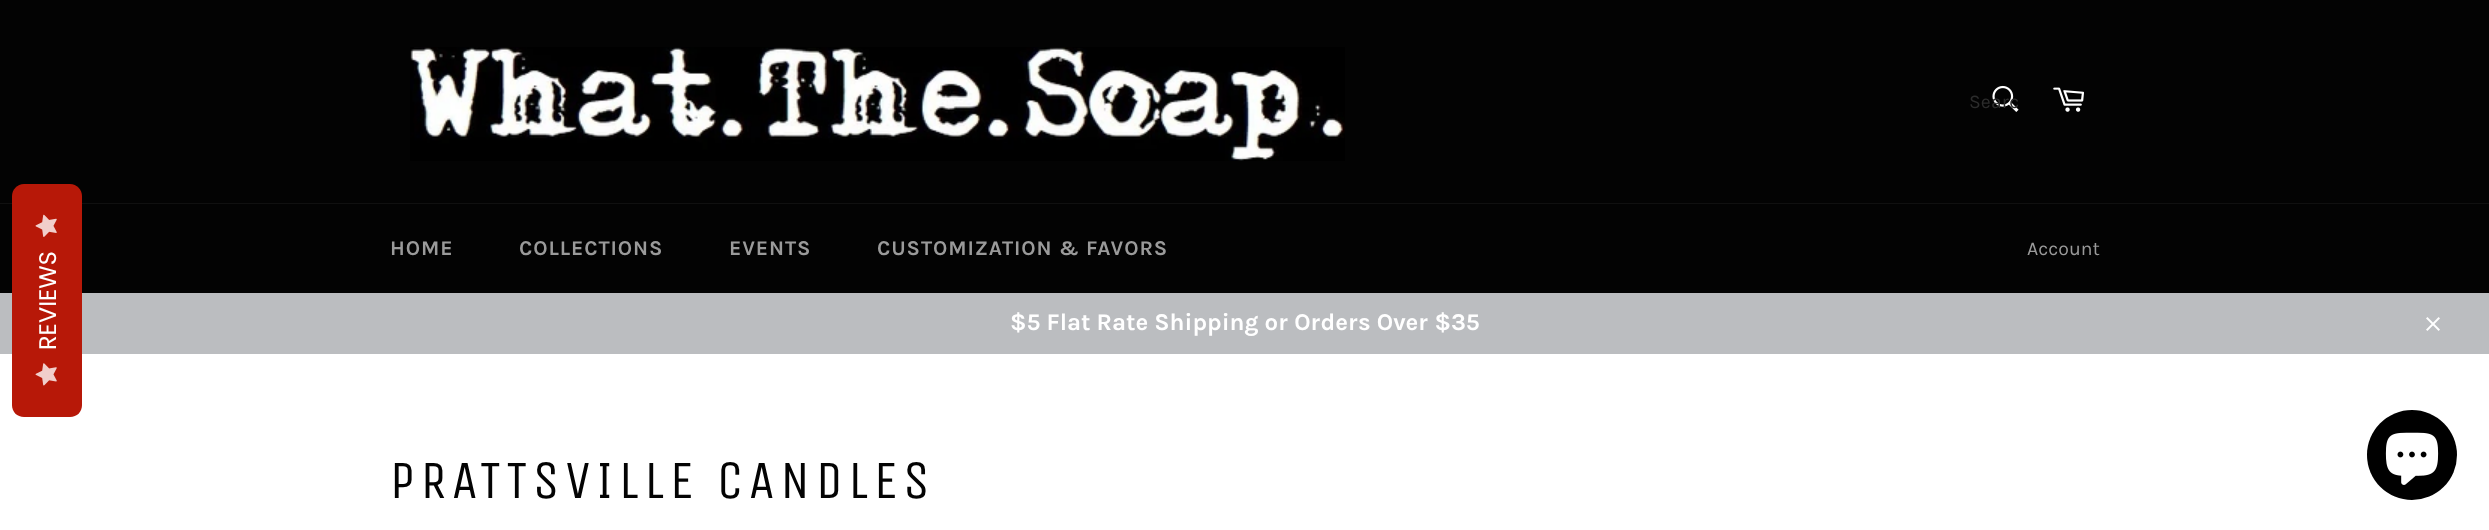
<svg xmlns="http://www.w3.org/2000/svg" width="2489" height="530">
<defs>
<clipPath id="clip1"><rect x="1970" y="90" width="48" height="23"/></clipPath>
</defs>
<rect width="100%" height="100%" fill="#030303"/>
<rect y="203" width="2489" height="1" fill="#101010"/>
<rect y="293" width="2489" height="61" fill="#bbbdc0"/>
<rect y="354" width="2489" height="176" fill="#fff"/>
<path d="M12 405v-209c0-6 5-12 12-12h46c7 0 12 6 12 12v209c0 7-5 12-12 12h-46c-7 0-12-5-12-12z" fill="#b71808"/>
<image x="35" y="214" width="22" height="23" href="media/1.png"/>
<text x="56" y="350" transform="rotate(-90 56 350)" style="font-family:Poppins;font-size:24px;fill:#fff">REVIEWS</text>
<image x="35" y="363" width="22" height="23" href="media/2.png"/>
<image x="410" y="47" width="935" height="114" href="media/3.png"/>
<image x="1992" y="85" width="27" height="27" href="media/4.png"/>
<g clip-path="url(#clip1)">
<text x="1969" y="108" style="font-family:Karla;font-size:19.5px;fill:#2c2c2c">Searc</text>
</g>
<image x="2053" y="87" width="31" height="25" href="media/5.png"/>
<text x="390" y="255" style="font-family:Karla;font-size:21px;font-weight:bold;letter-spacing:0.9px;fill:#9a9a9a">HOME</text>
<text x="519" y="255" style="font-family:Karla;font-size:21px;font-weight:bold;letter-spacing:0.9px;fill:#9a9a9a">COLLECTIONS</text>
<text x="729" y="255" style="font-family:Karla;font-size:21px;font-weight:bold;letter-spacing:0.9px;fill:#9a9a9a">EVENTS</text>
<text x="877" y="255" style="font-family:Karla;font-size:21px;font-weight:bold;letter-spacing:0.9px;fill:#9a9a9a">CUSTOMIZATION &amp; FAVORS</text>
<text x="2027" y="255" style="font-family:Karla;font-size:19.5px;fill:#9a9a9a">Account</text>
<text x="1010" y="330" style="font-family:Karla;font-size:24px;font-weight:bold;fill:#fff">$5 Flat Rate Shipping or Orders Over $35</text>
<image x="2426" y="317" width="14" height="14" href="media/6.png"/>
<text x="390" y="498" style="font-family:Unica One;font-size:54px;letter-spacing:5.4px;fill:#030303">PRATTSVILLE CANDLES</text>
<circle cx="2412" cy="455" r="45" fill="#000"/>
<image x="2385" y="432" width="54" height="53" href="media/7.png"/>
</svg>
